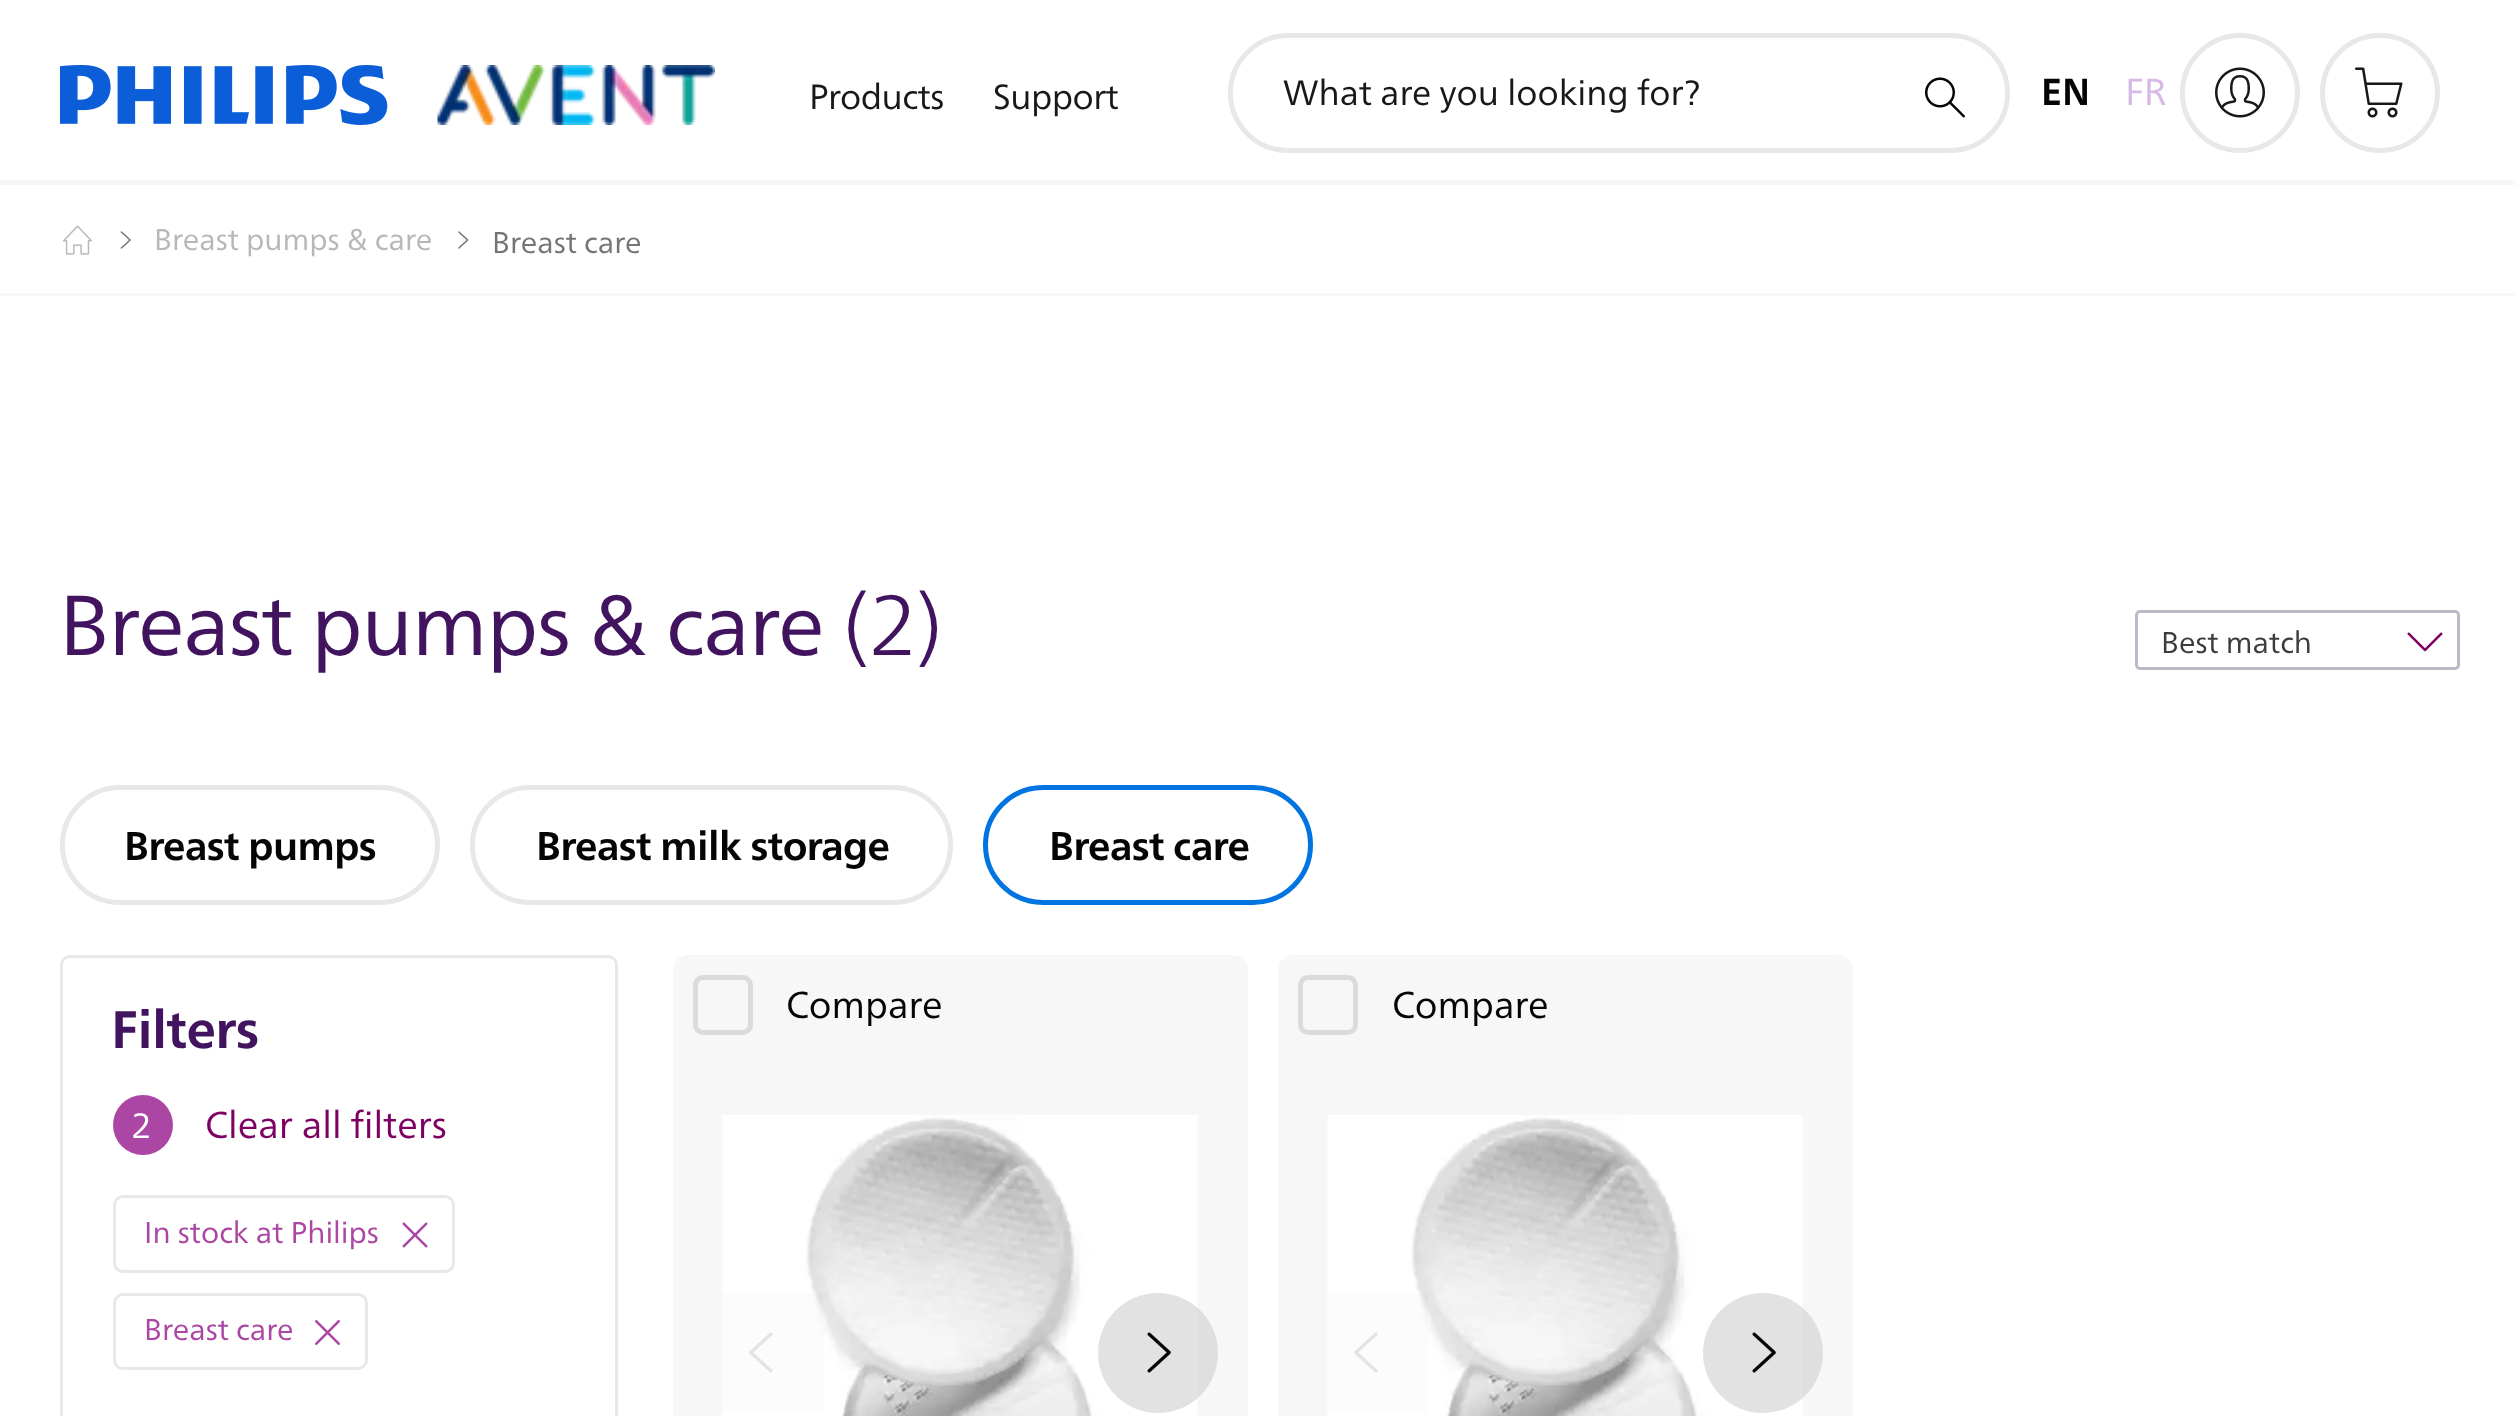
<svg xmlns="http://www.w3.org/2000/svg" width="2516" height="1416">
<rect width="100%" height="100%" fill="#fff"/>
<image x="60" y="65" width="328" height="60" href="media/1.png"/>
<image x="437" y="65" width="278" height="60" href="media/2.png"/>
<text x="809" y="109" style="font-family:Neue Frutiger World;font-size:35px;letter-spacing:-0.5px;fill:#18181b">Products</text>
<text x="993" y="109" style="font-family:Neue Frutiger World;font-size:35px;letter-spacing:-0.5px;fill:#18181b">Support</text>
<rect y="180" width="2516" height="5" fill="#f7f7f7"/>
<rect x="1230.5" y="35.5" width="777" height="115" rx="57.5" fill="none" stroke="#e8e8e8" stroke-width="5"/>
<text x="1283" y="105" style="font-family:Neue Frutiger World;font-size:35px;fill:#18181b">What are you looking for?</text>
<image x="1925" y="77" width="40" height="41" href="media/3.png"/>
<text x="2041" y="105" style="font-family:Neue Frutiger World;font-size:37.5px;font-weight:bold;fill:#050505">EN</text>
<text x="2125" y="105" style="font-family:Neue Frutiger World;font-size:37.5px;fill:#d6b9e6">FR</text>
<circle cx="2240" cy="93" r="57.5" fill="none" stroke="#e8e8e8" stroke-width="5"/>
<image x="2215" y="67" width="50" height="51" href="media/4.png"/>
<circle cx="2380" cy="93" r="57.5" fill="none" stroke="#e8e8e8" stroke-width="5"/>
<image x="2355" y="67" width="48" height="51" href="media/5.png"/>
<rect y="293" width="2516" height="3" fill="#f7f7f7"/>
<image x="63" y="225" width="29" height="30" href="media/6.png"/>
<image x="120" y="231" width="11" height="18" href="media/7.png"/>
<text x="154" y="250" style="font-family:Neue Frutiger World;font-size:30px;fill:#b8b8b8">Breast pumps &amp; care</text>
<image x="458" y="231" width="11" height="18" href="media/8.png"/>
<text x="492" y="253" style="font-family:Neue Frutiger World;font-size:30px;fill:#757575">Breast care</text>
<text x="59" y="655" style="font-family:Neue Frutiger World;font-size:85px;letter-spacing:-1.25px;fill:#42145f">Breast pumps &amp; care</text>
<text x="842" y="655" style="font-family:Neue Frutiger World;font-size:85px;font-weight:300;letter-spacing:-1.25px;fill:#42145f">(2)</text>
<rect x="2136.5" y="611.5" width="322" height="57" rx="3.5" fill="none" stroke="#b9bbc7" stroke-width="3"/>
<text x="2161" y="653" style="font-family:Neue Frutiger World;font-size:30px;fill:#3c3c3c">Best match</text>
<image x="2407" y="632" width="36" height="20" href="media/9.png"/>
<rect x="62.5" y="787.5" width="375" height="115" rx="57.5" fill="none" stroke="#e8e8e8" stroke-width="5"/>
<text x="124" y="860" style="font-family:Neue Frutiger World;font-size:40px;font-weight:bold;letter-spacing:-0.6px;fill:#050505">Breast pumps</text>
<rect x="472.5" y="787.5" width="478" height="115" rx="57.5" fill="none" stroke="#e8e8e8" stroke-width="5"/>
<text x="536" y="860" style="font-family:Neue Frutiger World;font-size:40px;font-weight:bold;letter-spacing:-0.6px;fill:#050505">Breast milk storage</text>
<rect x="985.5" y="787.5" width="325" height="115" rx="57.5" fill="none" stroke="#0074e0" stroke-width="5"/>
<text x="1049" y="860" style="font-family:Neue Frutiger World;font-size:40px;font-weight:bold;letter-spacing:-0.6px;fill:#050505">Breast care</text>
<rect x="61.5" y="956.5" width="555" height="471" rx="8.5" fill="none" stroke="#e8e8e8" stroke-width="3"/>
<text x="111" y="1048" style="font-family:Neue Frutiger World;font-size:52.5px;font-weight:bold;letter-spacing:-0.5px;fill:#42145f">Filters</text>
<circle cx="143" cy="1125" r="30" fill="#ab46a4"/>
<text x="131" y="1138" style="font-family:Neue Frutiger World;font-size:35px;fill:#fff">2</text>
<text x="205" y="1138" style="font-family:Neue Frutiger World;font-size:37.5px;fill:#7d0063">Clear all filters</text>
<rect x="114.5" y="1196.5" width="339" height="75" rx="8.5" fill="none" stroke="#e8e8e8" stroke-width="3"/>
<text x="144" y="1243" style="font-family:Neue Frutiger World;font-size:30px;fill:#ab46a4">In stock at Philips</text>
<image x="402" y="1222" width="26" height="26" href="media/10.png"/>
<rect x="114.5" y="1294.5" width="252" height="74" rx="8.5" fill="none" stroke="#e8e8e8" stroke-width="3"/>
<text x="144" y="1340" style="font-family:Neue Frutiger World;font-size:30px;fill:#ab46a4">Breast care</text>
<image x="315" y="1320" width="25" height="25" href="media/11.png"/>
<rect x="673" y="955" width="575" height="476" rx="15" fill="#f7f7f7"/>
<rect x="695.5" y="977.5" width="55" height="55" rx="7.5" fill="none" stroke="#dbdbdb" stroke-width="5"/>
<text x="786" y="1018" style="font-family:Neue Frutiger World;font-size:37.5px;fill:#050505">Compare</text>
<image x="722" y="1115" width="476" height="301" href="media/12.png"/>
<rect x="723" y="1293" width="100" height="120" fill="#d1d1d10f"/>
<image x="749" y="1332" width="24" height="41" href="media/13.png"/>
<circle cx="1158" cy="1353" r="60" fill="#d1d1d1a3"/>
<image x="1147" y="1332" width="24" height="41" href="media/14.png"/>
<rect x="1278" y="955" width="575" height="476" rx="15" fill="#f7f7f7"/>
<rect x="1300.5" y="977.5" width="55" height="55" rx="7.5" fill="none" stroke="#dbdbdb" stroke-width="5"/>
<text x="1392" y="1018" style="font-family:Neue Frutiger World;font-size:37.5px;fill:#050505">Compare</text>
<image x="1327" y="1115" width="476" height="301" href="media/12.png"/>
<rect x="1328" y="1293" width="100" height="120" fill="#d1d1d10f"/>
<image x="1354" y="1332" width="24" height="41" href="media/13.png"/>
<circle cx="1763" cy="1353" r="60" fill="#d1d1d1a3"/>
<image x="1752" y="1332" width="24" height="41" href="media/14.png"/>
</svg>
